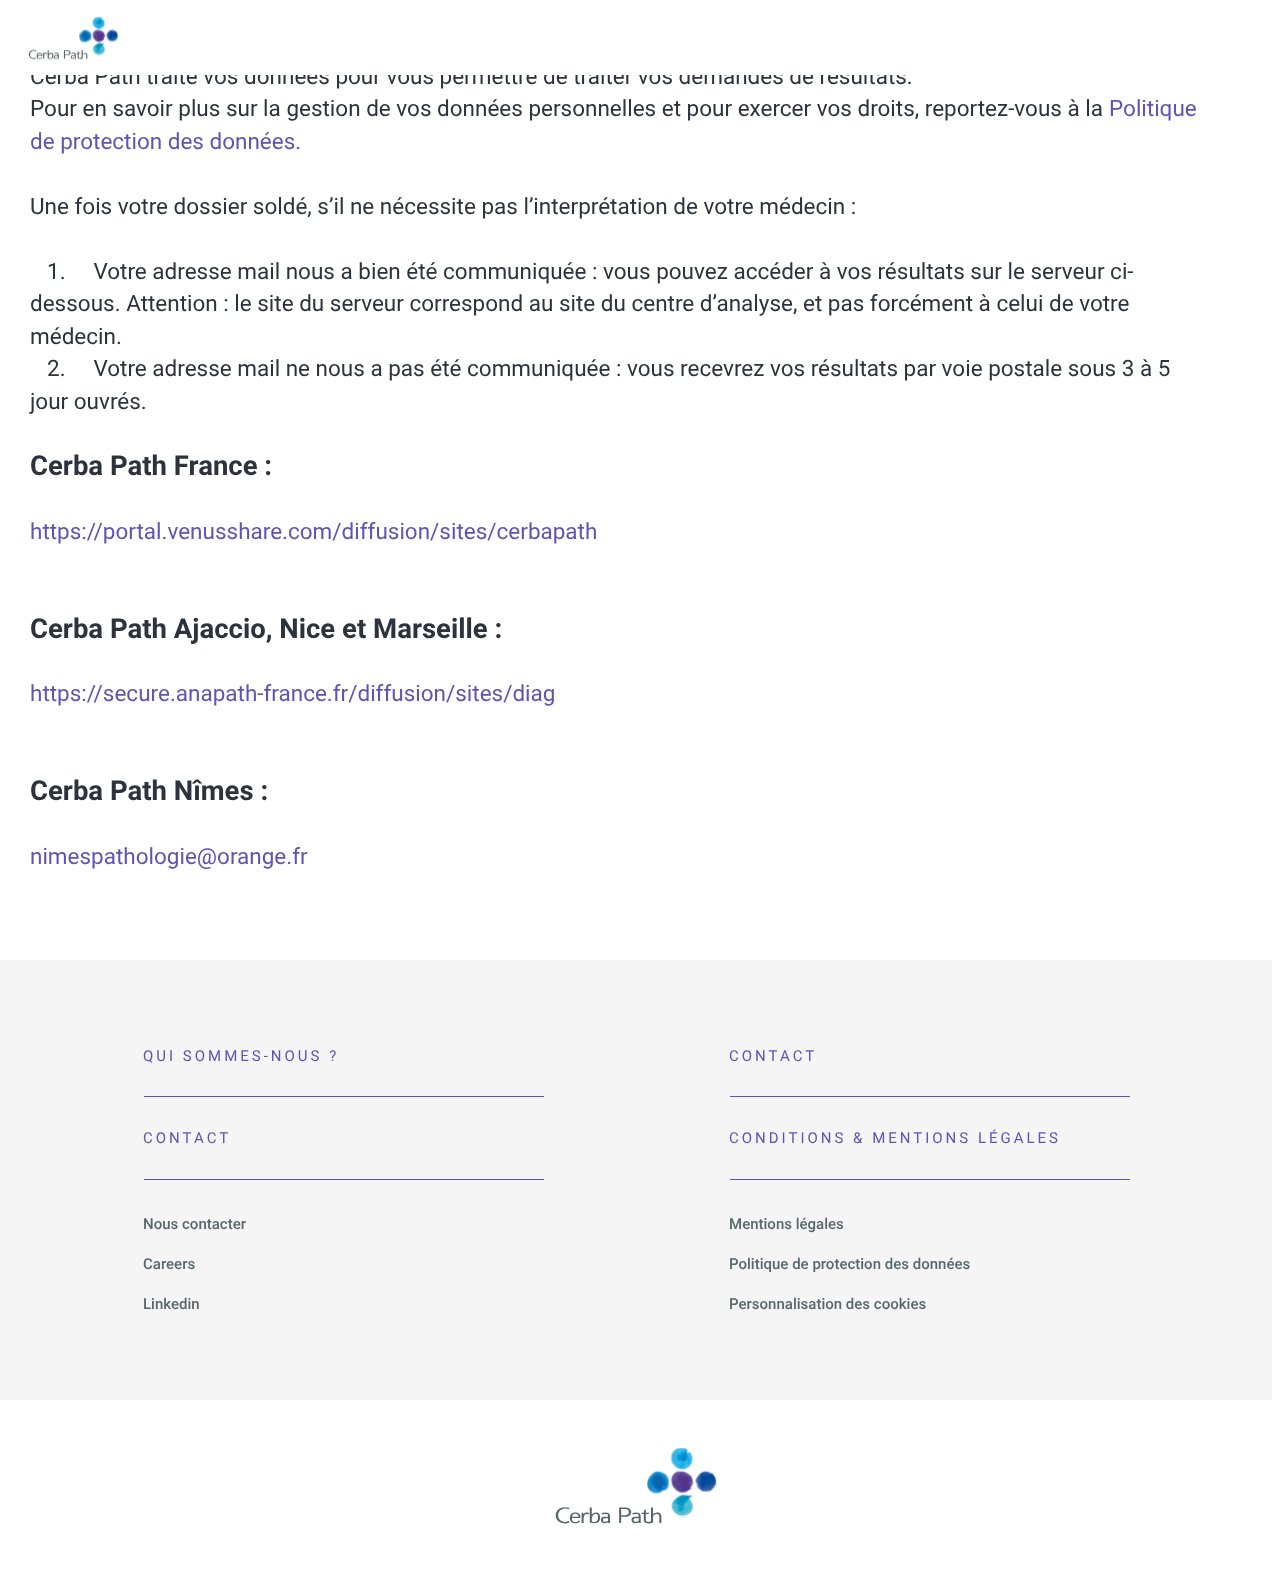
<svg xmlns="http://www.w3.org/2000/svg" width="1272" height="1571">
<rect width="100%" height="100%" fill="#fff"/>
<text x="30" y="84" style="font-family:Roboto;font-size:22.5px;fill:#2d333d">Cerba Path traite vos données pour vous permettre de traiter vos demandes de résultats.</text>
<rect x="31" y="67" width="875" height="8" fill="#fff"/>
<image x="28" y="16" width="90" height="44" href="media/1.png"/>
<text x="30" y="116" style="font-family:Roboto;font-size:22.5px;fill:#2d333d">Pour en savoir plus sur la gestion de vos données personnelles et pour exercer vos droits, reportez-vous à la</text>
<text x="1109" y="116" style="font-family:Roboto;font-size:22.5px;fill:#6053b4">Politique</text>
<text x="30" y="149" style="font-family:Roboto;font-size:22.5px;fill:#6053b4">de protection des données.</text>
<text x="30" y="214" style="font-family:Roboto;font-size:22.5px;fill:#2d333d">Une fois votre dossier soldé, s’il ne nécessite pas l’interprétation de votre médecin :</text>
<text x="47" y="279" style="font-family:Roboto;font-size:22.5px;fill:#2d333d" xml:space="preserve">1.     Votre adresse mail nous a bien été communiquée : vous pouvez accéder à vos résultats sur le serveur ci-</text>
<text x="30" y="311" style="font-family:Roboto;font-size:22.5px;fill:#2d333d">dessous. Attention : le site du serveur correspond au site du centre d’analyse, et pas forcément à celui de votre</text>
<text x="30" y="344" style="font-family:Roboto;font-size:22.5px;fill:#2d333d">médecin.</text>
<text x="47" y="376" style="font-family:Roboto;font-size:22.5px;fill:#2d333d" xml:space="preserve">2.     Votre adresse mail ne nous a pas été communiquée : vous recevrez vos résultats par voie postale sous 3 à 5</text>
<text x="30" y="409" style="font-family:Roboto;font-size:22.5px;fill:#2d333d">jour ouvrés.</text>
<text x="30" y="475" style="font-family:Roboto;font-size:27.5px;font-weight:bold;fill:#2d333d">Cerba Path France :</text>
<text x="30" y="539" style="font-family:Roboto;font-size:22.5px;fill:#6053b4">https://portal.venusshare.com/diffusion/sites/cerbapath</text>
<text x="30" y="638" style="font-family:Roboto;font-size:27.5px;font-weight:bold;fill:#2d333d">Cerba Path Ajaccio, Nice et Marseille :</text>
<text x="30" y="701" style="font-family:Roboto;font-size:22.5px;fill:#6053b4">https://secure.anapath-france.fr/diffusion/sites/diag</text>
<text x="30" y="800" style="font-family:Roboto;font-size:27.5px;font-weight:bold;fill:#2d333d">Cerba Path Nîmes :</text>
<text x="30" y="864" style="font-family:Roboto;font-size:22.5px;fill:#6053b4">nimespathologie@orange.fr</text>
<rect y="960" width="1272" height="440" fill="#f5f5f5"/>
<rect x="144" y="1096" width="400" height="1" fill="#6053b4"/>
<text x="143" y="1061" style="font-family:Roboto;font-size:15px;letter-spacing:3px;fill:#6053b4">QUI SOMMES-NOUS ?</text>
<rect x="730" y="1096" width="400" height="1" fill="#6053b4"/>
<text x="729" y="1061" style="font-family:Roboto;font-size:15px;letter-spacing:3px;fill:#6053b4">CONTACT</text>
<rect x="144" y="1179" width="400" height="1" fill="#6053b4"/>
<text x="143" y="1143" style="font-family:Roboto;font-size:15px;letter-spacing:3px;fill:#6053b4">CONTACT</text>
<text x="143" y="1229" style="font-family:Roboto;font-size:15px;font-weight:500;fill:#59676d">Nous contacter</text>
<text x="143" y="1269" style="font-family:Roboto;font-size:15px;font-weight:500;fill:#59676d">Careers</text>
<text x="143" y="1309" style="font-family:Roboto;font-size:15px;font-weight:500;fill:#59676d">Linkedin</text>
<rect x="730" y="1179" width="400" height="1" fill="#6053b4"/>
<text x="729" y="1143" style="font-family:Roboto;font-size:15px;letter-spacing:3px;fill:#6053b4">CONDITIONS &amp; MENTIONS LÉGALES</text>
<text x="729" y="1229" style="font-family:Roboto;font-size:15px;font-weight:500;fill:#59676d">Mentions légales</text>
<text x="729" y="1269" style="font-family:Roboto;font-size:15px;font-weight:500;fill:#59676d">Politique de protection des données</text>
<text x="729" y="1309" style="font-family:Roboto;font-size:15px;font-weight:500;fill:#59676d">Personnalisation des cookies</text>
<image x="555" y="1447" width="162" height="77" href="media/2.png"/>
</svg>
